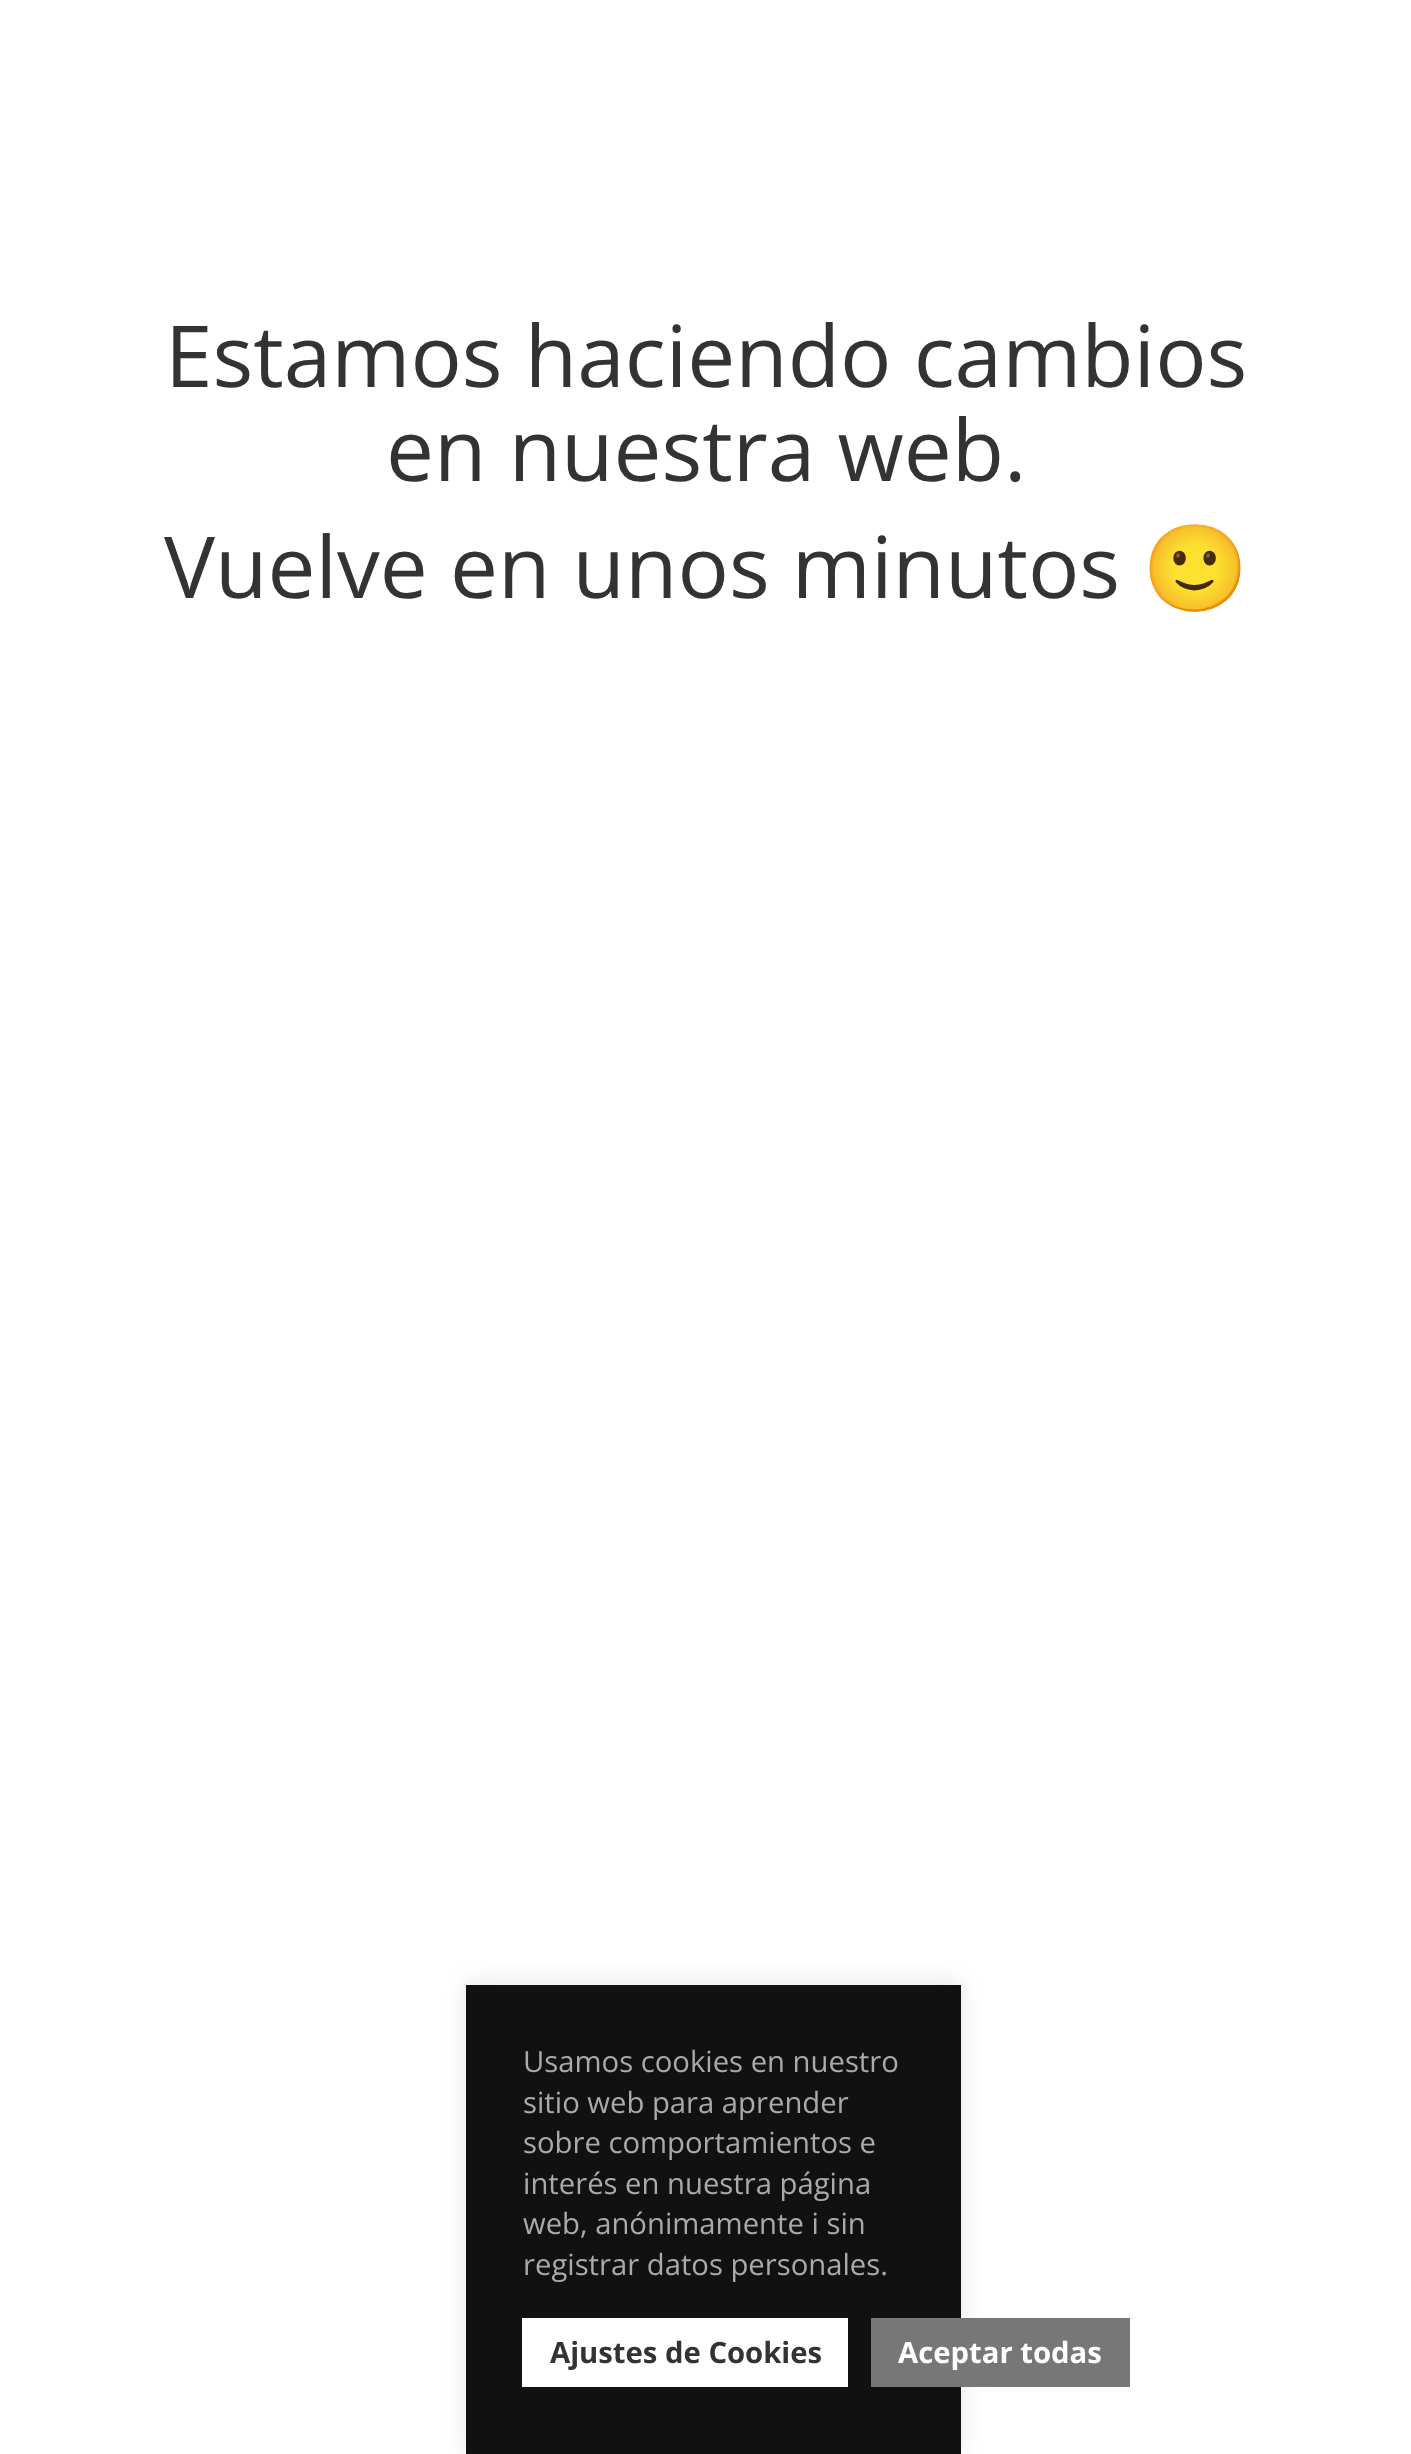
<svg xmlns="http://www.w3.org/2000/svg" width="1411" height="2454">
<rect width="100%" height="100%" fill="#fff"/>
<text x="165" y="387" style="font-family:Open Sans;font-size:85.5px;fill:#333">Estamos haciendo cambios</text>
<text x="386" y="481" style="font-family:Open Sans;font-size:85.5px;fill:#333">en nuestra web.</text>
<text x="164" y="598" style="font-family:Open Sans;font-size:85.5px;fill:#333">Vuelve en unos minutos</text>
<text x="1142" y="598" style="font-family:Noto Color Emoji;font-size:85.5px;fill:#333">🙂</text>
<rect x="466" y="1982" width="495" height="471" fill="#acabab4d" filter="blur(11px)"/>
<rect x="466" y="1985" width="495" height="469" fill="#111"/>
<text x="523" y="2072" style="font-family:Open Sans;font-size:29.25px;fill:#aaa">Usamos cookies en nuestro</text>
<text x="523" y="2113" style="font-family:Open Sans;font-size:29.25px;fill:#aaa">sitio web para aprender</text>
<text x="523" y="2153" style="font-family:Open Sans;font-size:29.25px;fill:#aaa">sobre comportamientos e</text>
<text x="523" y="2194" style="font-family:Open Sans;font-size:29.25px;fill:#aaa">interés en nuestra página</text>
<text x="523" y="2234" style="font-family:Open Sans;font-size:29.25px;fill:#aaa">web, anónimamente i sin</text>
<text x="523" y="2275" style="font-family:Open Sans;font-size:29.25px;fill:#aaa">registrar datos personales.</text>
<rect x="522" y="2318" width="326" height="69" fill="#fff"/>
<text x="550" y="2363" style="font-family:Open Sans;font-size:29.25px;font-weight:bold;fill:#333">Ajustes de Cookies</text>
<rect x="871" y="2318" width="259" height="69" fill="#777"/>
<text x="898" y="2363" style="font-family:Open Sans;font-size:29.25px;font-weight:bold;fill:#fff">Aceptar todas</text>
</svg>
